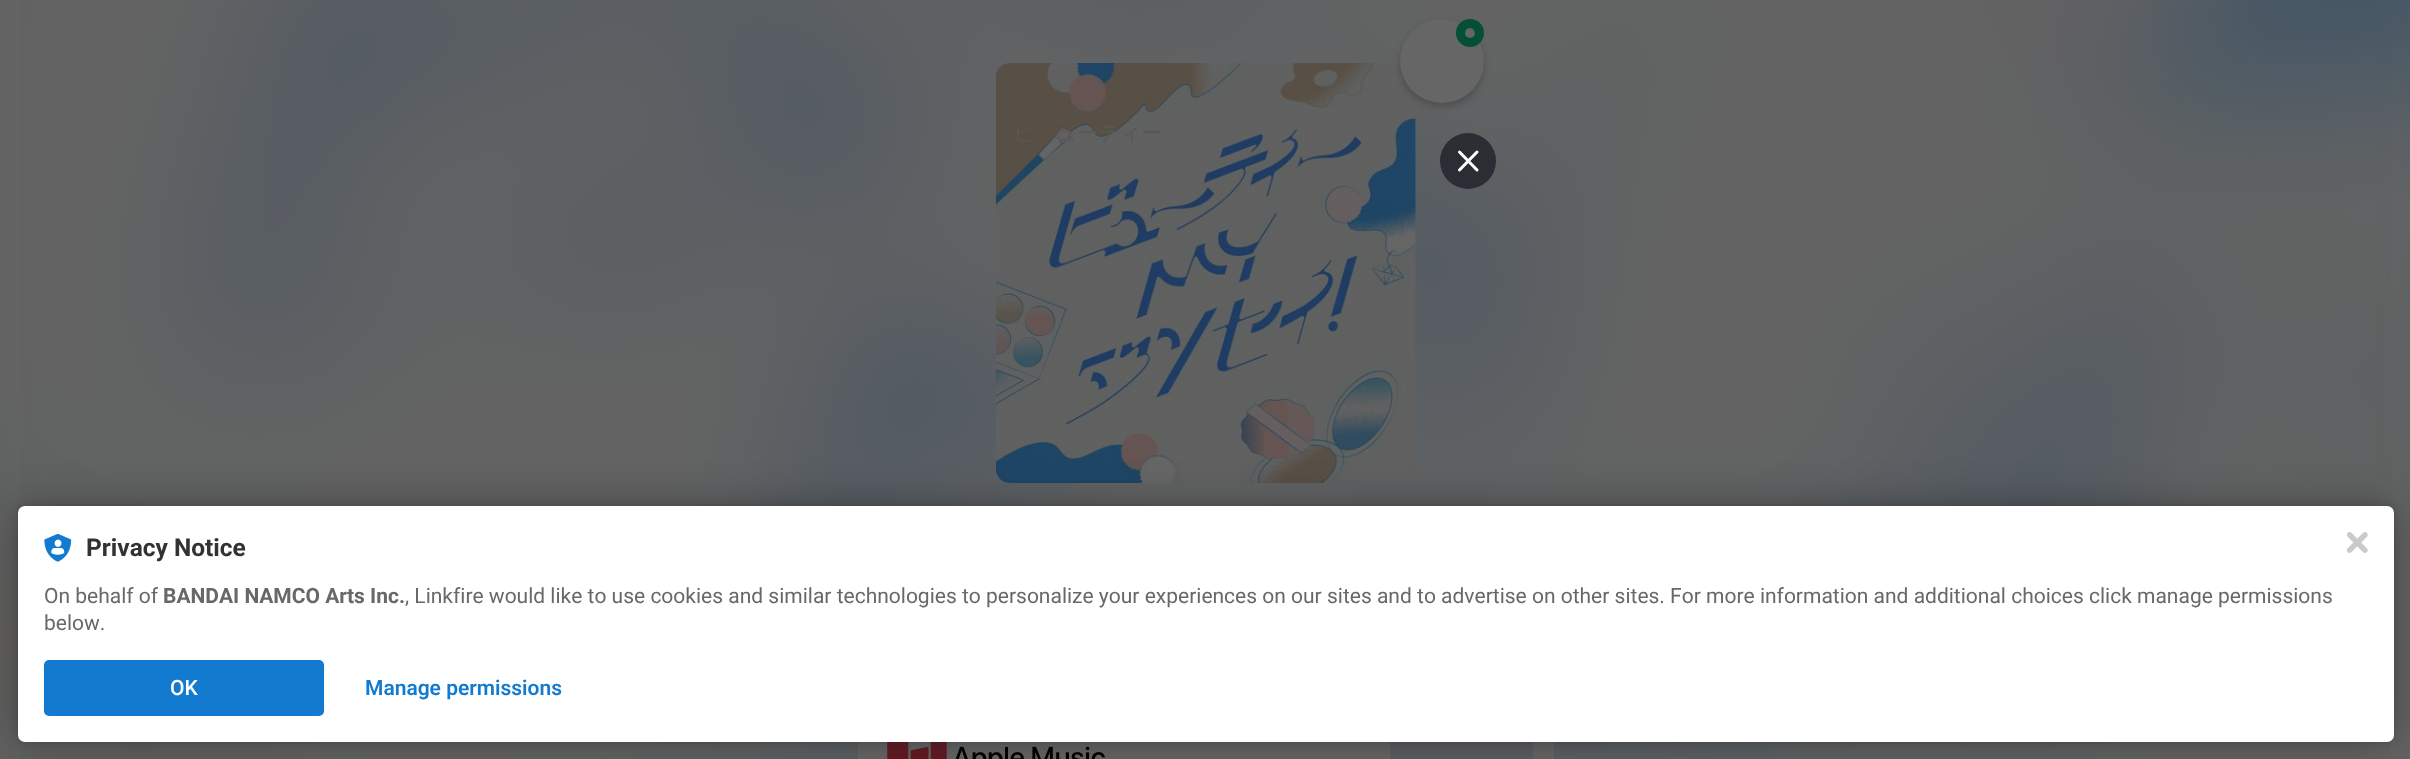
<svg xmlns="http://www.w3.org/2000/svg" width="2410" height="759">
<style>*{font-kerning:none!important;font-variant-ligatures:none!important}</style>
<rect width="100%" height="100%" fill="#666"/>
<image x="0" y="0" width="2410" height="759" href="media/1.png"/>
<image x="996" y="63" width="420" height="420" href="media/2.png"/>
<text x="1013" y="140" style="font-family:WenQuanYi Zen Hei;font-size:21px;font-weight:500;fill:#5a5854">ビューティー</text>
<rect x="857" y="694" width="698" height="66" fill="none" stroke="#5c5e61" stroke-width="2"/>
<rect x="858" y="742" width="696" height="17" fill="#666"/>
<image x="887" y="742" width="218" height="17" href="media/3.png"/>
<rect x="1390" y="742" width="143" height="17" fill="#5c5e61"/>
<rect x="1400" y="23" width="84" height="84" rx="42" fill="#00000033" filter="blur(3.5px)"/>
<circle cx="1442" cy="61" r="42" fill="#666"/>
<circle cx="1470" cy="33" r="9.5" fill="none" stroke="#054f36" stroke-width="9"/>
<circle cx="1468" cy="161" r="28" fill="#181721b3"/>
<path d="M1459.5 152l17.5 18m-17.5 0l17.5-18" fill="none" stroke="#fff" stroke-width="3" stroke-linecap="round" stroke-linejoin="round"/>
<rect x="18" y="506" width="2376" height="236" rx="7" fill="#0000001f" filter="blur(3.5px)"/>
<rect x="18" y="506" width="2376" height="236" rx="7" fill="#0000004d" filter="blur(21px)"/>
<rect x="18" y="506" width="2376" height="236" rx="7" fill="#fff"/>
<image x="44" y="534" width="28" height="28" href="media/4.png"/>
<text x="86" y="556" style="font-family:Roboto;font-size:24.5px;font-weight:bold;fill:#323232">Privacy Notice</text>
<text x="44" y="603" style="font-family:Roboto;font-size:21px;fill:#686868">On behalf of</text>
<text x="163" y="603" style="font-family:Roboto;font-size:21px;font-weight:bold;fill:#686868">BANDAI NAMCO Arts Inc.</text>
<text x="405" y="603" style="font-family:Roboto;font-size:21px;fill:#686868">, Linkfire would like to use cookies and similar technologies to personalize your experiences on our sites and to advertise on other sites. For more information and additional choices click manage permissions</text>
<text x="44" y="630" style="font-family:Roboto;font-size:21px;fill:#686868">below.</text>
<rect x="44" y="660" width="280" height="56" rx="5" fill="#137bcf"/>
<text x="170" y="695" style="font-family:Roboto;font-size:21px;font-weight:500;fill:#fff">OK</text>
<text x="365" y="695" style="font-family:Roboto;font-size:21px;font-weight:600;fill:#137bcf">Manage permissions</text>
<image x="2347" y="532" width="21" height="21" href="media/5.png"/>
</svg>
